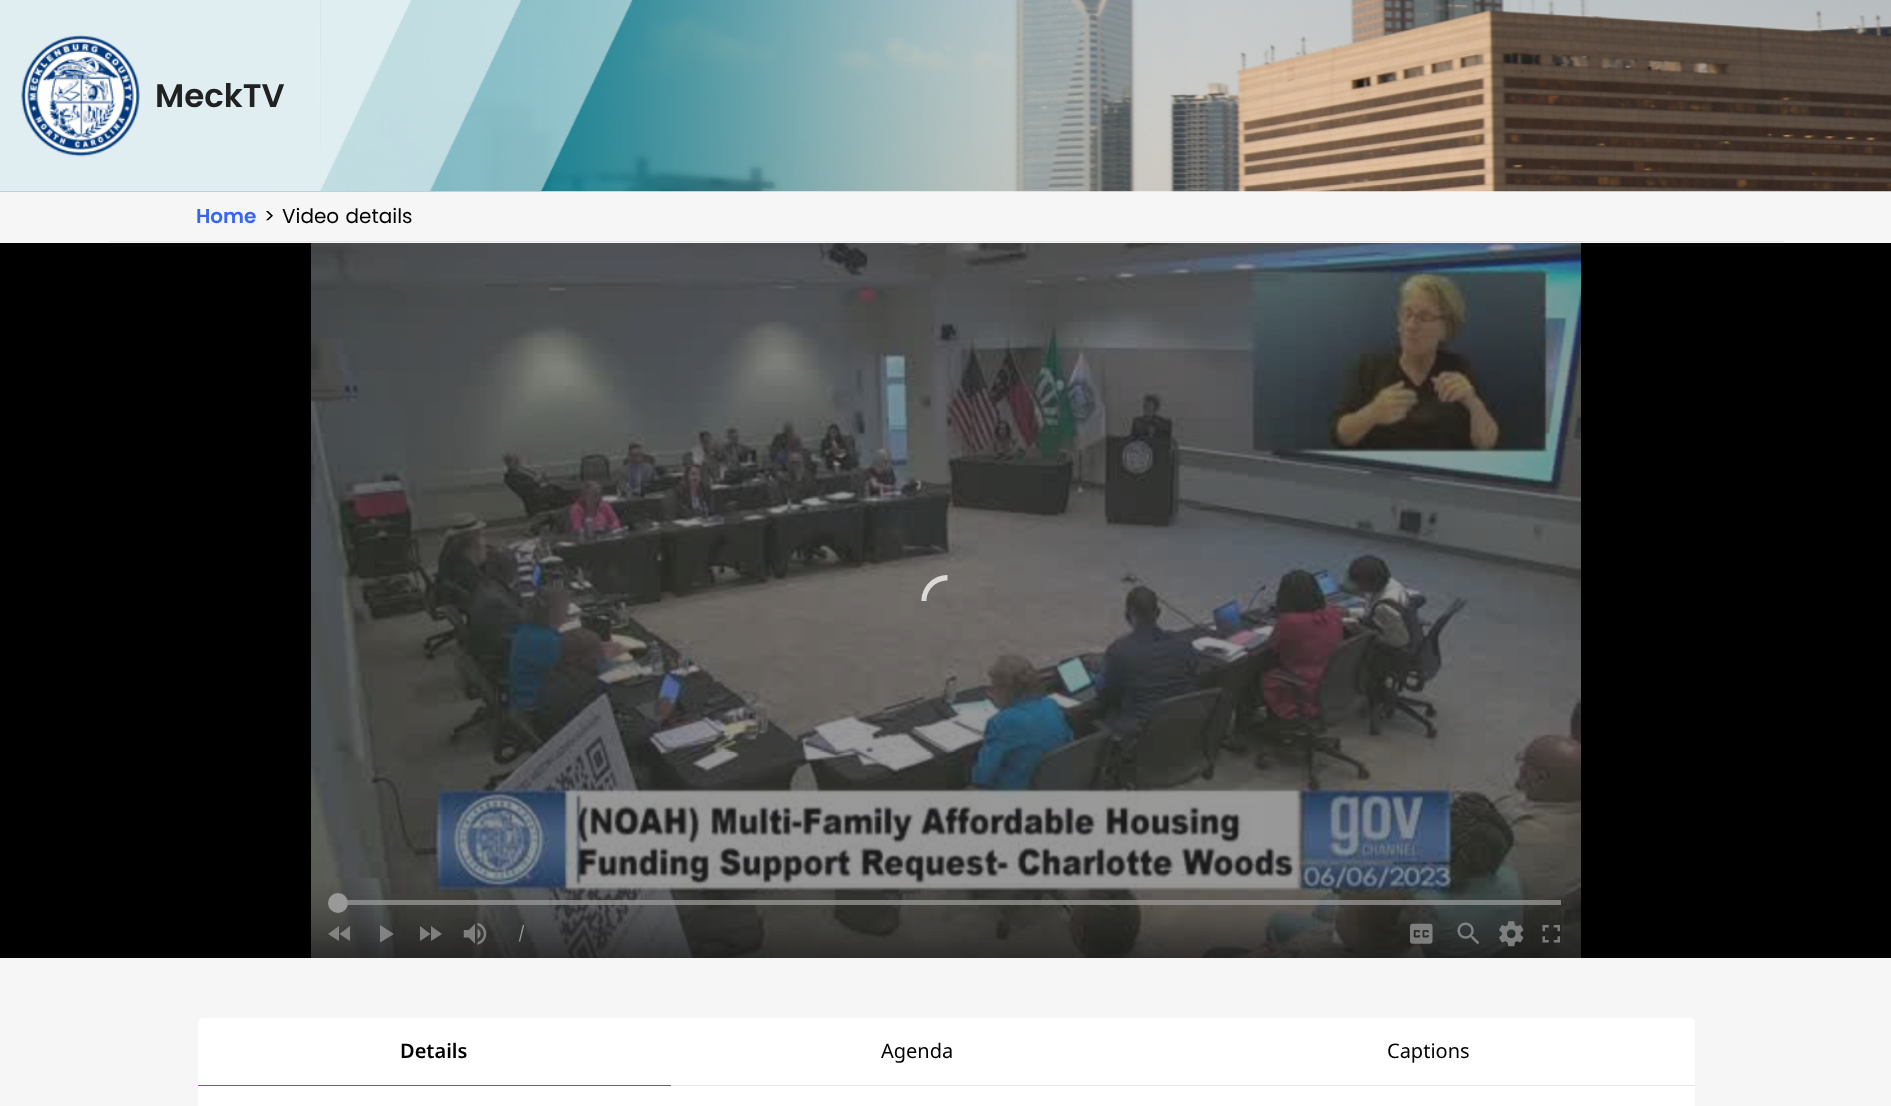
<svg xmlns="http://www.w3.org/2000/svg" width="1891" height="1106">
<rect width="100%" height="100%" fill="#f6f6f6"/>
<image x="0" y="0" width="1891" height="192" href="media/1.png"/>
<rect width="320" height="191" fill="#ffffffe0"/>
<image x="21" y="35" width="119" height="122" href="media/2.png"/>
<text x="155" y="107" style="font-family:Poppins;font-size:32.5px;font-weight:600;fill:#212121">MeckTV</text>
<image x="320" y="0" width="313" height="191" href="media/3.png"/>
<rect x="109" y="241" width="1675" height="1" fill="#e5e5e5"/>
<text x="196" y="223" style="font-family:Poppins;font-size:20px;font-weight:600;fill:#3665f3">Home</text>
<text x="264" y="223" style="font-family:Poppins;font-size:20px;fill:#000">&gt;</text>
<text x="282" y="223" word-spacing="1" style="font-family:Poppins;font-size:20px;fill:#000">Video details</text>
<rect y="243" width="1891" height="715" fill="#000"/>
<image x="311" y="243" width="1270" height="715" href="media/4.png"/>
<path d="M947.5 580.5v-5.5c-14.5 0-26 12-26 26h5c0-11.5 9.5-20.5 21-20.5z" fill="#ffffffbf"/>
<image x="311" y="883" width="1270" height="75" href="media/5.png"/>
<rect x="347" y="900" width="1214" height="5" fill="#999999bf"/>
<circle cx="338" cy="903" r="10" fill="#999"/>
<path d="M339 941v-15l-11 8zm.5-7l10.5 7v-15z" fill="#999999bf"/>
<path d="M380 925v17.5l14-8.5zm40 16l10.5-7l-10.5-8zm11-15v15l11-7z" fill="#999999bf"/>
<image x="463" y="922" width="24" height="23" href="media/6.png"/>
<text x="518" y="939" style="font-family:Poppins;font-size:15px;fill:#999">/</text>
<image x="1410" y="923" width="23" height="21" href="media/7.png"/>
<image x="1457" y="922" width="23" height="23" href="media/8.png"/>
<image x="1499" y="921" width="25" height="26" href="media/9.png"/>
<image x="1542" y="925" width="18" height="18" href="media/10.png"/>
<rect x="198" y="1018" width="1497" height="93" rx="5" fill="#fff"/>
<rect x="198" y="1085" width="473" height="1" fill="#3665f3"/>
<text x="400" y="1058" style="font-family:Noto Sans;font-size:20px;font-weight:600;fill:#000">Details</text>
<rect x="671" y="1085" width="1024" height="1" fill="#e5e5e5"/>
<text x="881" y="1058" style="font-family:Noto Sans;font-size:20px;fill:#000">Agenda</text>
<text x="1387" y="1058" style="font-family:Noto Sans;font-size:20px;fill:#000">Captions</text>
</svg>
